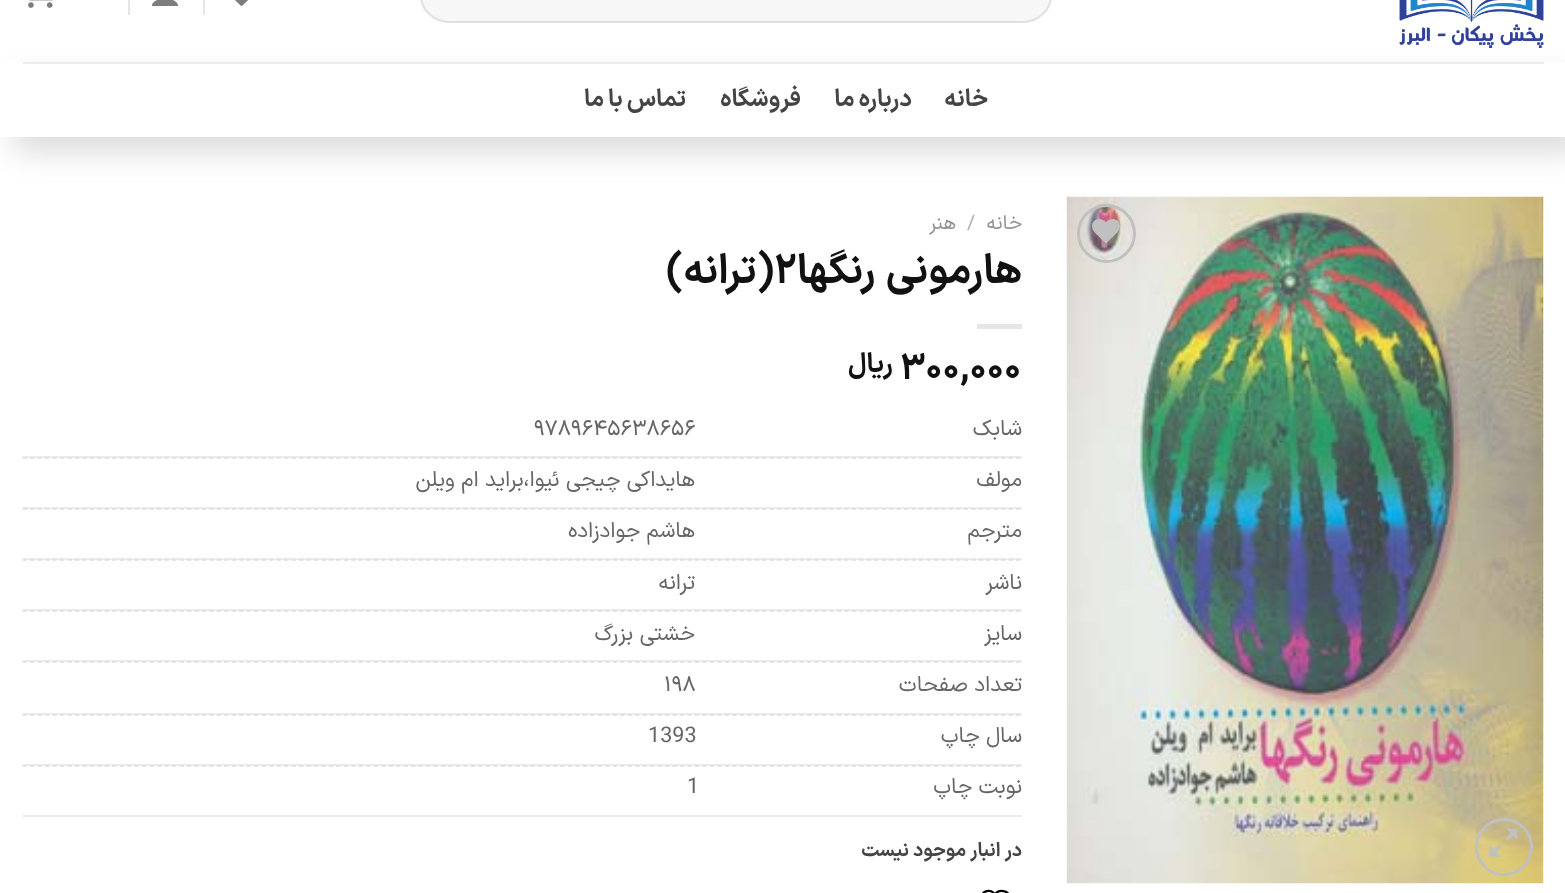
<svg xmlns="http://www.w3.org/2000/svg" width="1565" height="893">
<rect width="100%" height="100%" fill="#fff"/>
<image x="1066" y="196" width="478" height="688" href="media/5.png"/>
<rect x="15" y="77" width="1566" height="75" fill="#00000024" filter="blur(15px)"/>
<image x="1399" y="0" width="145" height="48" href="media/1.png"/>
<rect x="420" y="-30" width="632" height="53" rx="30" fill="#f7f7f7"/>
<rect x="421" y="-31" width="630" height="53" rx="29" fill="none" stroke="#00000017" stroke-width="2"/>
<image x="235" y="0" width="13" height="6" href="media/2.png"/>
<rect x="203" width="2" height="15" fill="#e6e6e6"/>
<image x="151" y="0" width="28" height="6" href="media/3.png"/>
<rect x="128" width="2" height="15" fill="#e6e6e6"/>
<image x="28" y="0" width="25" height="8" href="media/4.png"/>
<rect y="62" width="1565" height="75" fill="#fff"/>
<rect x="23" y="62" width="1521" height="2" fill="#ececec"/>
<text x="988" y="106" style="font-family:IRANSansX;font-size:24px;font-weight:bold;letter-spacing:0.5px;direction:rtl;fill:#444">خانه</text>
<text x="912" y="106" word-spacing="-1" style="font-family:IRANSansX;font-size:24px;font-weight:bold;letter-spacing:0.5px;direction:rtl;fill:#444">درباره ما</text>
<text x="801" y="106" style="font-family:IRANSansX;font-size:24px;font-weight:bold;letter-spacing:0.5px;direction:rtl;fill:#444">فروشگاه</text>
<text x="686" y="106" word-spacing="-1" style="font-family:IRANSansX;font-size:24px;font-weight:bold;letter-spacing:0.5px;direction:rtl;fill:#444">تماس با ما</text>
<circle cx="1106.5" cy="233.5" r="28" fill="none" stroke="#c0c0c0" stroke-width="3"/>
<image x="1092" y="219" width="28" height="24" href="media/6.png"/>
<circle cx="1504" cy="847" r="27.5" fill="none" stroke="#c0c0c0" stroke-width="3"/>
<image x="1489" y="828" width="29" height="29" href="media/7.png"/>
<text x="1022" y="229" style="font-family:IRANSansX;font-size:20px;direction:rtl;fill:#949494">خانه</text>
<text x="967" y="229" style="font-family:IRANSansX;font-size:20px;fill:#b2b2b2">/</text>
<text x="956" y="229" style="font-family:IRANSansX;font-size:20px;direction:rtl;fill:#949494">هنر</text>
<text x="1022" y="283" word-spacing="2" style="font-family:IRANSansX;font-size:40.75px;font-weight:bold;direction:rtl;fill:#111">هارمونی رنگها</text>
<text x="774" y="283" style="font-family:IRANSansX;font-size:40.75px;font-weight:bold;fill:#111">۲</text>
<text x="774" y="283" style="font-family:IRANSansX;font-size:40.75px;font-weight:bold;direction:rtl;fill:#111">(ترانه)</text>
<rect x="977" y="324" width="45" height="5" fill="#e6e6e6"/>
<text x="900" y="379" style="font-family:IRANSansX;font-size:36px;font-weight:bold;fill:#111">۳۰۰,۰۰۰</text>
<text x="893" y="372" style="font-family:IRANSansX;font-size:27px;font-weight:bold;direction:rtl;fill:#111">ریال</text>
<rect x="23" y="456" width="999" height="2" fill="#ececec"/>
<text x="1022" y="435" style="font-family:IRANSansX;font-size:21.6px;direction:rtl;fill:#666">شابک</text>
<text x="534" y="435" style="font-family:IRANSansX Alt;font-size:21.6px;fill:#666">9789645638656</text>
<path d="M22.5 458h999" fill="none" stroke="#ddd" stroke-width="1.5" stroke-dasharray="4.5 2.97"/>
<rect x="23" y="507" width="999" height="2" fill="#ececec"/>
<text x="1022" y="486" style="font-family:IRANSansX;font-size:21.6px;direction:rtl;fill:#666">مولف</text>
<text x="695" y="486" style="font-family:IRANSansX;font-size:21.6px;direction:rtl;fill:#666">هایداکی چیجی ئیوا،براید ام ویلن</text>
<path d="M22.5 509h999" fill="none" stroke="#ddd" stroke-width="1.5" stroke-dasharray="4.5 2.97"/>
<rect x="23" y="558" width="999" height="2" fill="#ececec"/>
<text x="1022" y="537" style="font-family:IRANSansX;font-size:21.6px;direction:rtl;fill:#666">مترجم</text>
<text x="695" y="537" style="font-family:IRANSansX;font-size:21.6px;direction:rtl;fill:#666">هاشم جوادزاده</text>
<path d="M22.5 560h999" fill="none" stroke="#ddd" stroke-width="1.5" stroke-dasharray="4.5 2.97"/>
<rect x="23" y="609" width="999" height="2" fill="#ececec"/>
<text x="1022" y="589" style="font-family:IRANSansX;font-size:21.6px;direction:rtl;fill:#666">ناشر</text>
<text x="695" y="589" style="font-family:IRANSansX;font-size:21.6px;direction:rtl;fill:#666">ترانه</text>
<path d="M22.5 611h999" fill="none" stroke="#ddd" stroke-width="1.5" stroke-dasharray="4.5 2.97"/>
<rect x="23" y="660" width="999" height="2" fill="#ececec"/>
<text x="1022" y="640" style="font-family:IRANSansX;font-size:21.6px;direction:rtl;fill:#666">سایز</text>
<text x="695" y="640" style="font-family:IRANSansX;font-size:21.6px;direction:rtl;fill:#666">خشتی بزرگ</text>
<path d="M22.5 662h999" fill="none" stroke="#ddd" stroke-width="1.5" stroke-dasharray="4.5 2.97"/>
<rect x="23" y="713" width="999" height="2" fill="#ececec"/>
<text x="1022" y="691" style="font-family:IRANSansX;font-size:21.6px;direction:rtl;fill:#666">تعداد صفحات</text>
<text x="664" y="691" style="font-family:IRANSansX Alt;font-size:21.6px;fill:#666">198</text>
<path d="M22.5 715h999" fill="none" stroke="#ddd" stroke-width="1.5" stroke-dasharray="4.5 2.97"/>
<rect x="23" y="764" width="999" height="2" fill="#ececec"/>
<text x="1022" y="742" style="font-family:IRANSansX;font-size:21.6px;direction:rtl;fill:#666">سال چاپ</text>
<text x="648" y="742" style="font-family:IRANSansX;font-size:21.6px;fill:#666">1393</text>
<path d="M22.5 766h999" fill="none" stroke="#ddd" stroke-width="1.5" stroke-dasharray="4.5 2.97"/>
<rect x="23" y="815" width="999" height="2" fill="#ececec"/>
<text x="1022" y="793" style="font-family:IRANSansX;font-size:21.6px;direction:rtl;fill:#666">نوبت چاپ</text>
<text x="687" y="793" style="font-family:IRANSansX;font-size:21.6px;fill:#666">1</text>
<text x="1022" y="856" style="font-family:IRANSansX;font-size:19.25px;font-weight:bold;direction:rtl;fill:#444">در انبار موجود نیست</text>
<path d="M1009.5 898c0-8-11.5-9.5-14.5-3c-3.5-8.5-19.5-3.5-11.5 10.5c2.5 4.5 7 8.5 11.5 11c0 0 14.5-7.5 14.5-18.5z" fill="none" stroke="#000" stroke-width="2.3" stroke-linecap="round" stroke-linejoin="round"/>
</svg>
